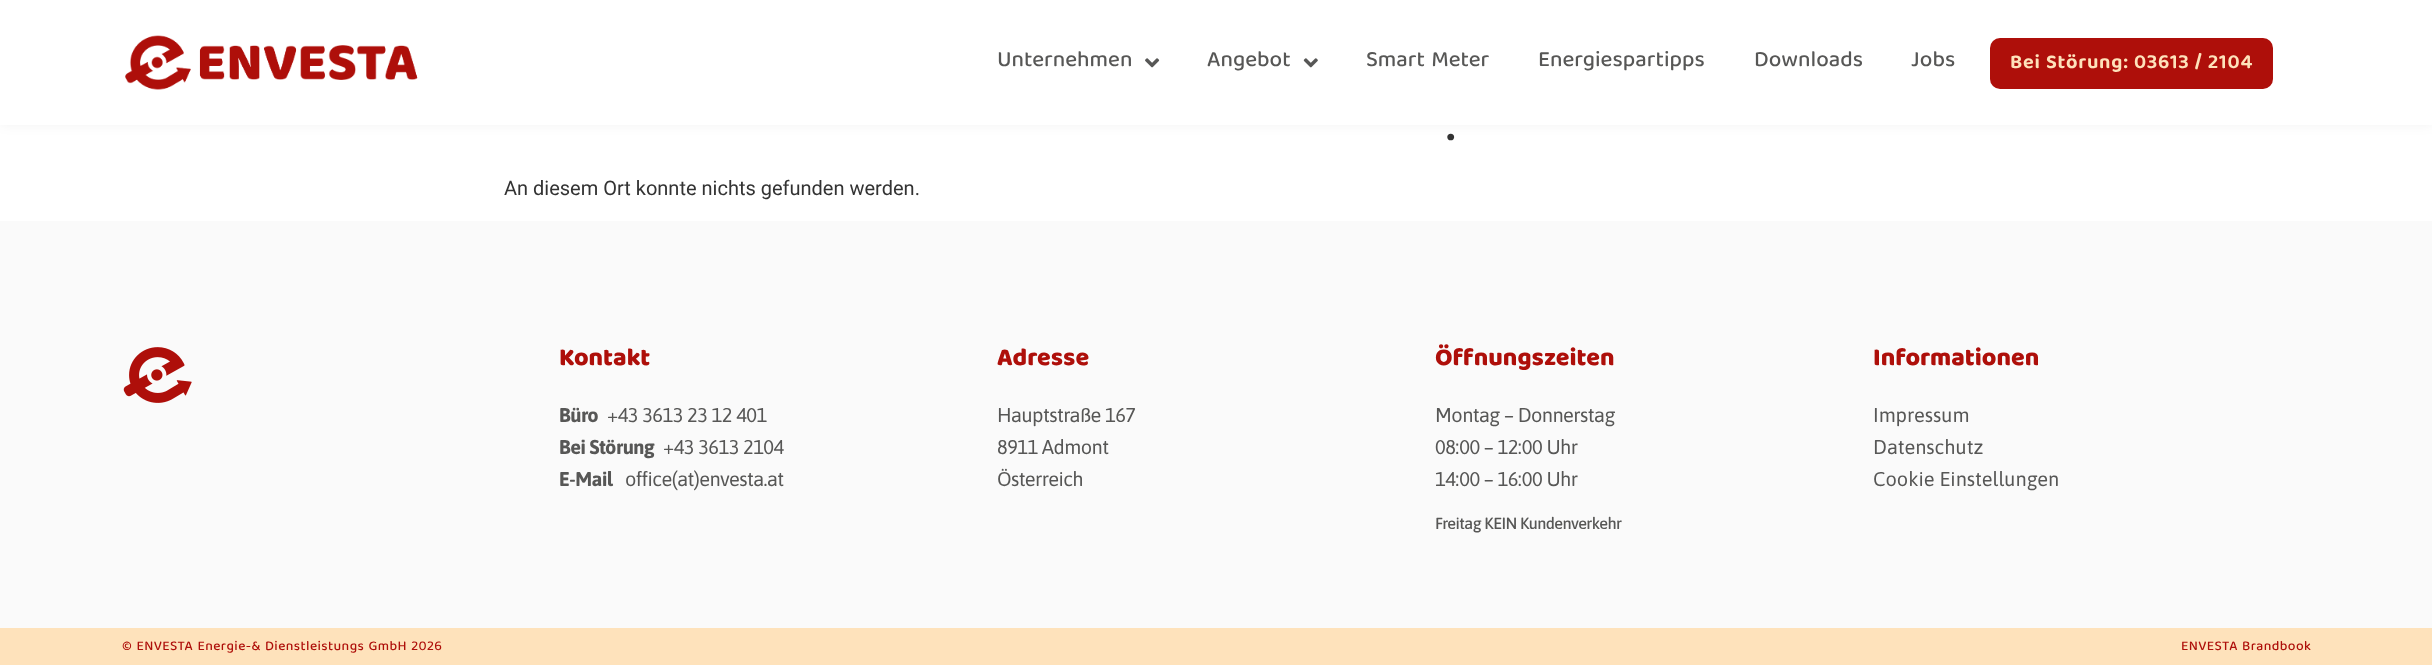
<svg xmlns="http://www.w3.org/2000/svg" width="2432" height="666">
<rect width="100%" height="100%" fill="#fff"/>
<rect width="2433" height="125" fill="#0000000d" filter="blur(6px)"/>
<rect width="2432" height="125" fill="#fff"/>
<image x="125" y="35" width="293" height="55" href="media/1.png"/>
<text x="997" y="66" style="font-family:'Baloo Tamma 2';font-size:22.5px;font-weight:500;fill:#575756">Unternehmen</text>
<image x="1145" y="58" width="15" height="10" href="media/2.png"/>
<text x="1207" y="66" style="font-family:'Baloo Tamma 2';font-size:22.5px;font-weight:500;fill:#575756">Angebot</text>
<image x="1303" y="58" width="15" height="10" href="media/3.png"/>
<text x="1366" y="66" style="font-family:'Baloo Tamma 2';font-size:22.5px;font-weight:500;fill:#575756">Smart Meter</text>
<text x="1538" y="66" style="font-family:'Baloo Tamma 2';font-size:22.5px;font-weight:500;fill:#575756">Energiespartipps</text>
<text x="1754" y="66" style="font-family:'Baloo Tamma 2';font-size:22.5px;font-weight:500;fill:#575756">Downloads</text>
<text x="1911" y="66" style="font-family:'Baloo Tamma 2';font-size:22.5px;font-weight:500;fill:#575756">Jobs</text>
<rect x="1990" y="38" width="283" height="51" rx="10" fill="#ae0f0a"/>
<text x="2010" y="68" style="font-family:'Baloo Tamma 2';font-size:20px;font-weight:bold;letter-spacing:0.75px;fill:#fee2bb">Bei Störung: 03613 / 2104</text>
<text x="1444" y="140" style="font-family:Roboto;font-size:50px;font-weight:500;fill:#333">.</text>
<text x="504" y="195" style="font-family:Roboto;font-size:20px;fill:#333">An diesem Ort konnte nichts gefunden werden.</text>
<rect y="221" width="2432" height="407" fill="#fafafa"/>
<image x="123" y="347" width="69" height="56" href="media/4.png"/>
<text x="559" y="365" style="font-family:'Baloo Tamma 2';font-size:25px;font-weight:800;fill:#ae0f0a">Kontakt</text>
<text x="559" y="422" style="font-family:Asap;font-size:20px;font-weight:bold;letter-spacing:-0.55px;fill:#575756">Büro</text>
<text x="607" y="422" style="font-family:Asap;font-size:20px;letter-spacing:-0.55px;fill:#575756">+43 3613 23 12 401</text>
<text x="559" y="454" style="font-family:Asap;font-size:20px;font-weight:bold;letter-spacing:-0.55px;fill:#575756">Bei Störung</text>
<text x="663" y="454" style="font-family:Asap;font-size:20px;letter-spacing:-0.55px;fill:#575756">+43 3613 2104</text>
<text x="559" y="486" style="font-family:Asap;font-size:20px;font-weight:bold;letter-spacing:-0.55px;fill:#575756">E-Mail</text>
<text x="625" y="486" style="font-family:Asap;font-size:20px;letter-spacing:-0.55px;fill:#575756">office(at)envesta.at</text>
<text x="997" y="365" style="font-family:'Baloo Tamma 2';font-size:25px;font-weight:800;fill:#ae0f0a">Adresse</text>
<text x="997" y="422" style="font-family:Asap;font-size:20px;letter-spacing:-0.55px;fill:#575756">Hauptstraße 167</text>
<text x="997" y="454" style="font-family:Asap;font-size:20px;letter-spacing:-0.55px;fill:#575756">8911 Admont</text>
<text x="997" y="486" style="font-family:Asap;font-size:20px;letter-spacing:-0.55px;fill:#575756">Österreich</text>
<text x="1435" y="365" style="font-family:'Baloo Tamma 2';font-size:25px;font-weight:800;fill:#ae0f0a">Öffnungszeiten</text>
<text x="1435" y="422" style="font-family:Asap;font-size:20px;letter-spacing:-0.55px;fill:#575756">Montag – Donnerstag</text>
<text x="1435" y="454" style="font-family:Asap;font-size:20px;letter-spacing:-0.55px;fill:#575756">08:00 – 12:00 Uhr</text>
<text x="1435" y="486" style="font-family:Asap;font-size:20px;letter-spacing:-0.55px;fill:#575756">14:00 – 16:00 Uhr</text>
<text x="1435" y="529" style="font-family:Asap;font-size:16.25px;font-weight:500;letter-spacing:-0.55px;fill:#575756">Freitag KEIN Kundenverkehr</text>
<text x="1873" y="365" style="font-family:'Baloo Tamma 2';font-size:25px;font-weight:800;fill:#ae0f0a">Informationen</text>
<text x="1873" y="422" style="font-family:Asap;font-size:20px;fill:#575756">Impressum</text>
<text x="1873" y="454" style="font-family:Asap;font-size:20px;fill:#575756">Datenschutz</text>
<text x="1873" y="486" style="font-family:Asap;font-size:20px;fill:#575756">Cookie Einstellungen</text>
<rect y="628" width="2432" height="37" fill="#fee2bb"/>
<text x="122" y="650" style="font-family:'Baloo Tamma 2';font-size:13.75px;font-weight:500;letter-spacing:0.4px;fill:#ae0f0a">© ENVESTA Energie-&amp; Dienstleistungs GmbH 2026</text>
<text x="2181" y="650" style="font-family:'Baloo Tamma 2';font-size:13.75px;font-weight:500;letter-spacing:0.4px;fill:#ae0f0a">ENVESTA Brandbook</text>
</svg>
